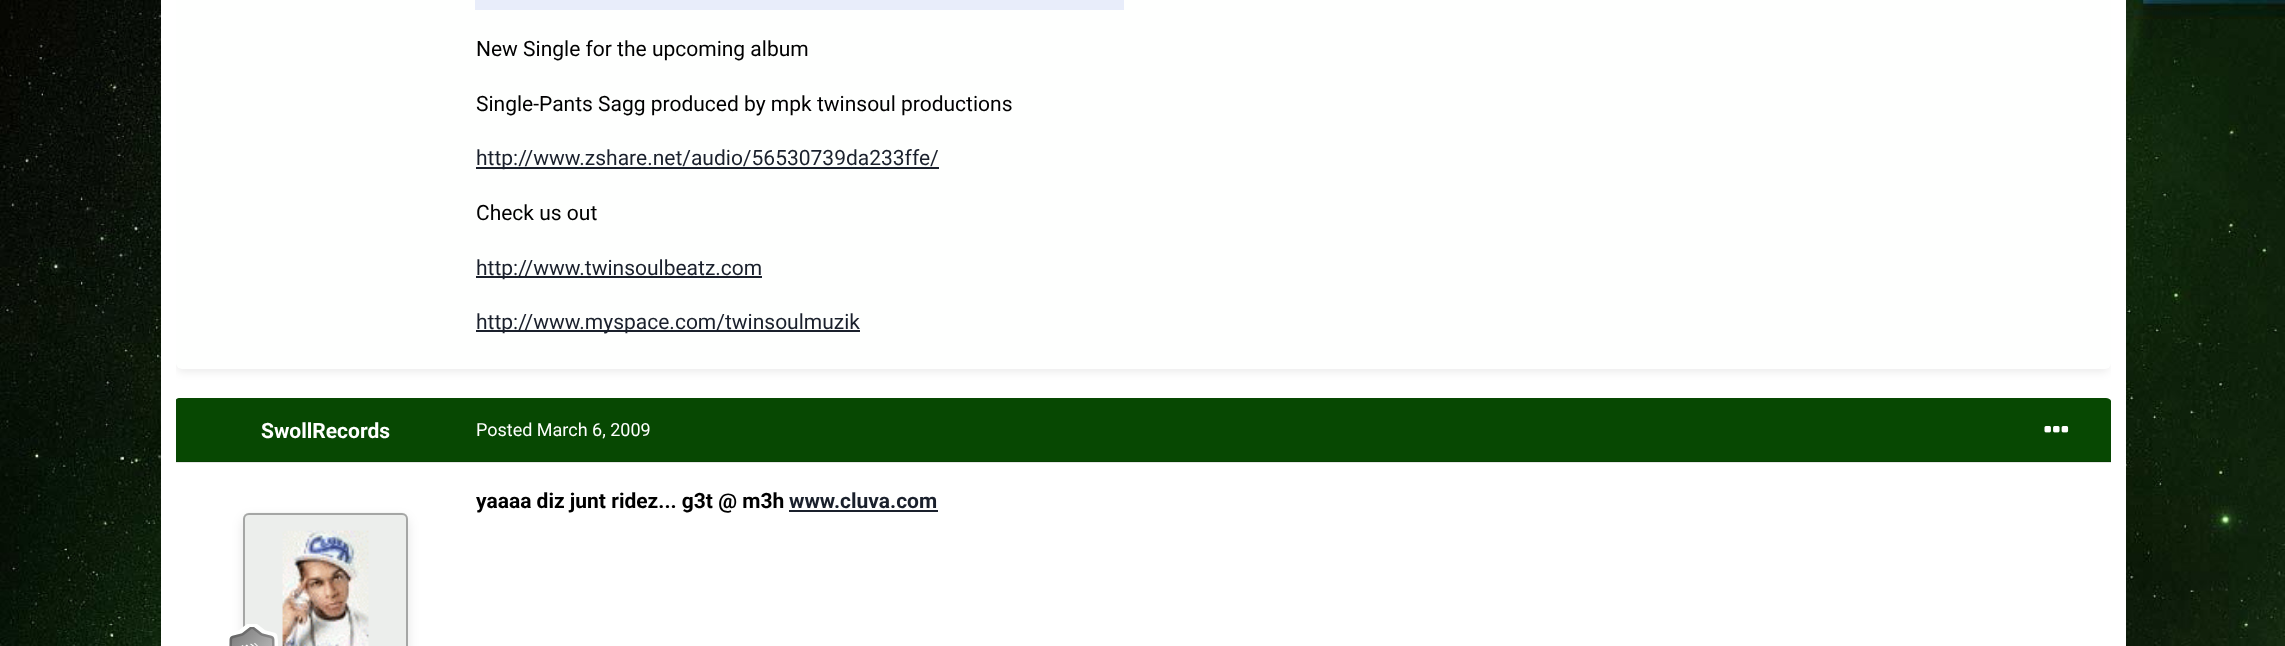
<svg xmlns="http://www.w3.org/2000/svg" width="2285" height="646">
<defs>
<clipPath id="clip1"><rect x="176" y="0" width="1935" height="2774"/></clipPath>
<clipPath id="clip2"><rect x="176" width="1935" height="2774"/></clipPath>
<clipPath id="clip3"><path d="M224 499h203v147h-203zm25 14h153c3.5 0 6 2.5 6 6v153c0 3.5-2.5 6-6 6h-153c-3.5 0-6-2.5-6-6v-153c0-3.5 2.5-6 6-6z" clip-rule="evenodd"/></clipPath>
</defs>
<rect width="100%" height="100%" fill="#fff"/>
<image x="0" y="0" width="2285" height="646" href="media/1.png"/>
<rect x="161" y="-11" width="1965" height="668" rx="5" fill="#00000014" filter="blur(2px)"/>
<rect x="161" y="-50" width="1965" height="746" rx="5" fill="#0000000f" filter="blur(15px)"/>
<rect x="161" width="1965" height="646" fill="#fff"/>
<g clip-path="url(#clip1)">
<rect x="177" y="-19" width="1932" height="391" rx="5" fill="#00000014" filter="blur(4.5px)"/>
</g>
<rect x="176" y="-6" width="1935" height="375" rx="6" fill="#fefffe"/>
<rect x="475" width="649" height="10" fill="#e8edfa"/>
<text x="476" y="56" style="font-family:Roboto;font-size:21px;fill:#000">New Single for the upcoming album</text>
<text x="476" y="111" style="font-family:Roboto;font-size:21px;fill:#000">Single-Pants Sagg produced by mpk twinsoul productions</text>
<rect x="476" y="167" width="463" height="2" fill="#1a202c"/>
<text x="476" y="165" style="font-family:Roboto;font-size:21px;fill:#1a202c">http://www.zshare.net/audio/56530739da233ffe/</text>
<text x="476" y="220" style="font-family:Roboto;font-size:21px;fill:#000">Check us out</text>
<rect x="476" y="276" width="286" height="2" fill="#1a202c"/>
<text x="476" y="275" style="font-family:Roboto;font-size:21px;fill:#1a202c">http://www.twinsoulbeatz.com</text>
<rect x="476" y="330" width="384" height="2" fill="#1a202c"/>
<text x="476" y="329" style="font-family:Roboto;font-size:21px;fill:#1a202c">http://www.myspace.com/twinsoulmuzik</text>
<g clip-path="url(#clip2)">
<path d="M180 398h1926c3.5 0 6 2.5 6 6v58h-1938v-58c0-3.5 2.5-6 6-6z" fill="#074802"/>
</g>
<rect x="176" y="461" width="1935" height="2" fill="#0000001a"/>
<text x="261" y="438" style="font-family:Roboto;font-size:21px;font-weight:bold;fill:#fff">SwollRecords</text>
<image x="243" y="512" width="165" height="134" href="media/2.png"/>
<g clip-path="url(#clip3)">
<rect x="243" y="518" width="165" height="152" rx="6" fill="#0000001a" filter="blur(6px)"/>
</g>
<rect x="244" y="514" width="163" height="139" rx="5" fill="none" stroke="#0000004d" stroke-width="2"/>
<image x="229" y="624" width="49" height="22" href="media/3.png"/>
<text x="476" y="436" style="font-family:Roboto;font-size:18px;fill:#fff">Posted March 6, 2009</text>
<image x="2044" y="426" width="25" height="7" href="media/4.png"/>
<text x="476" y="508" style="font-family:Roboto;font-size:21px;font-weight:bold;fill:#000">yaaaa diz junt ridez... g3t @ m3h</text>
<text x="789" y="508" style="font-family:Roboto;font-size:21px;font-weight:bold;fill:#1a202c">www.cluva.com</text>
<rect x="789" y="510" width="149" height="2" fill="#1a202c"/>
</svg>
